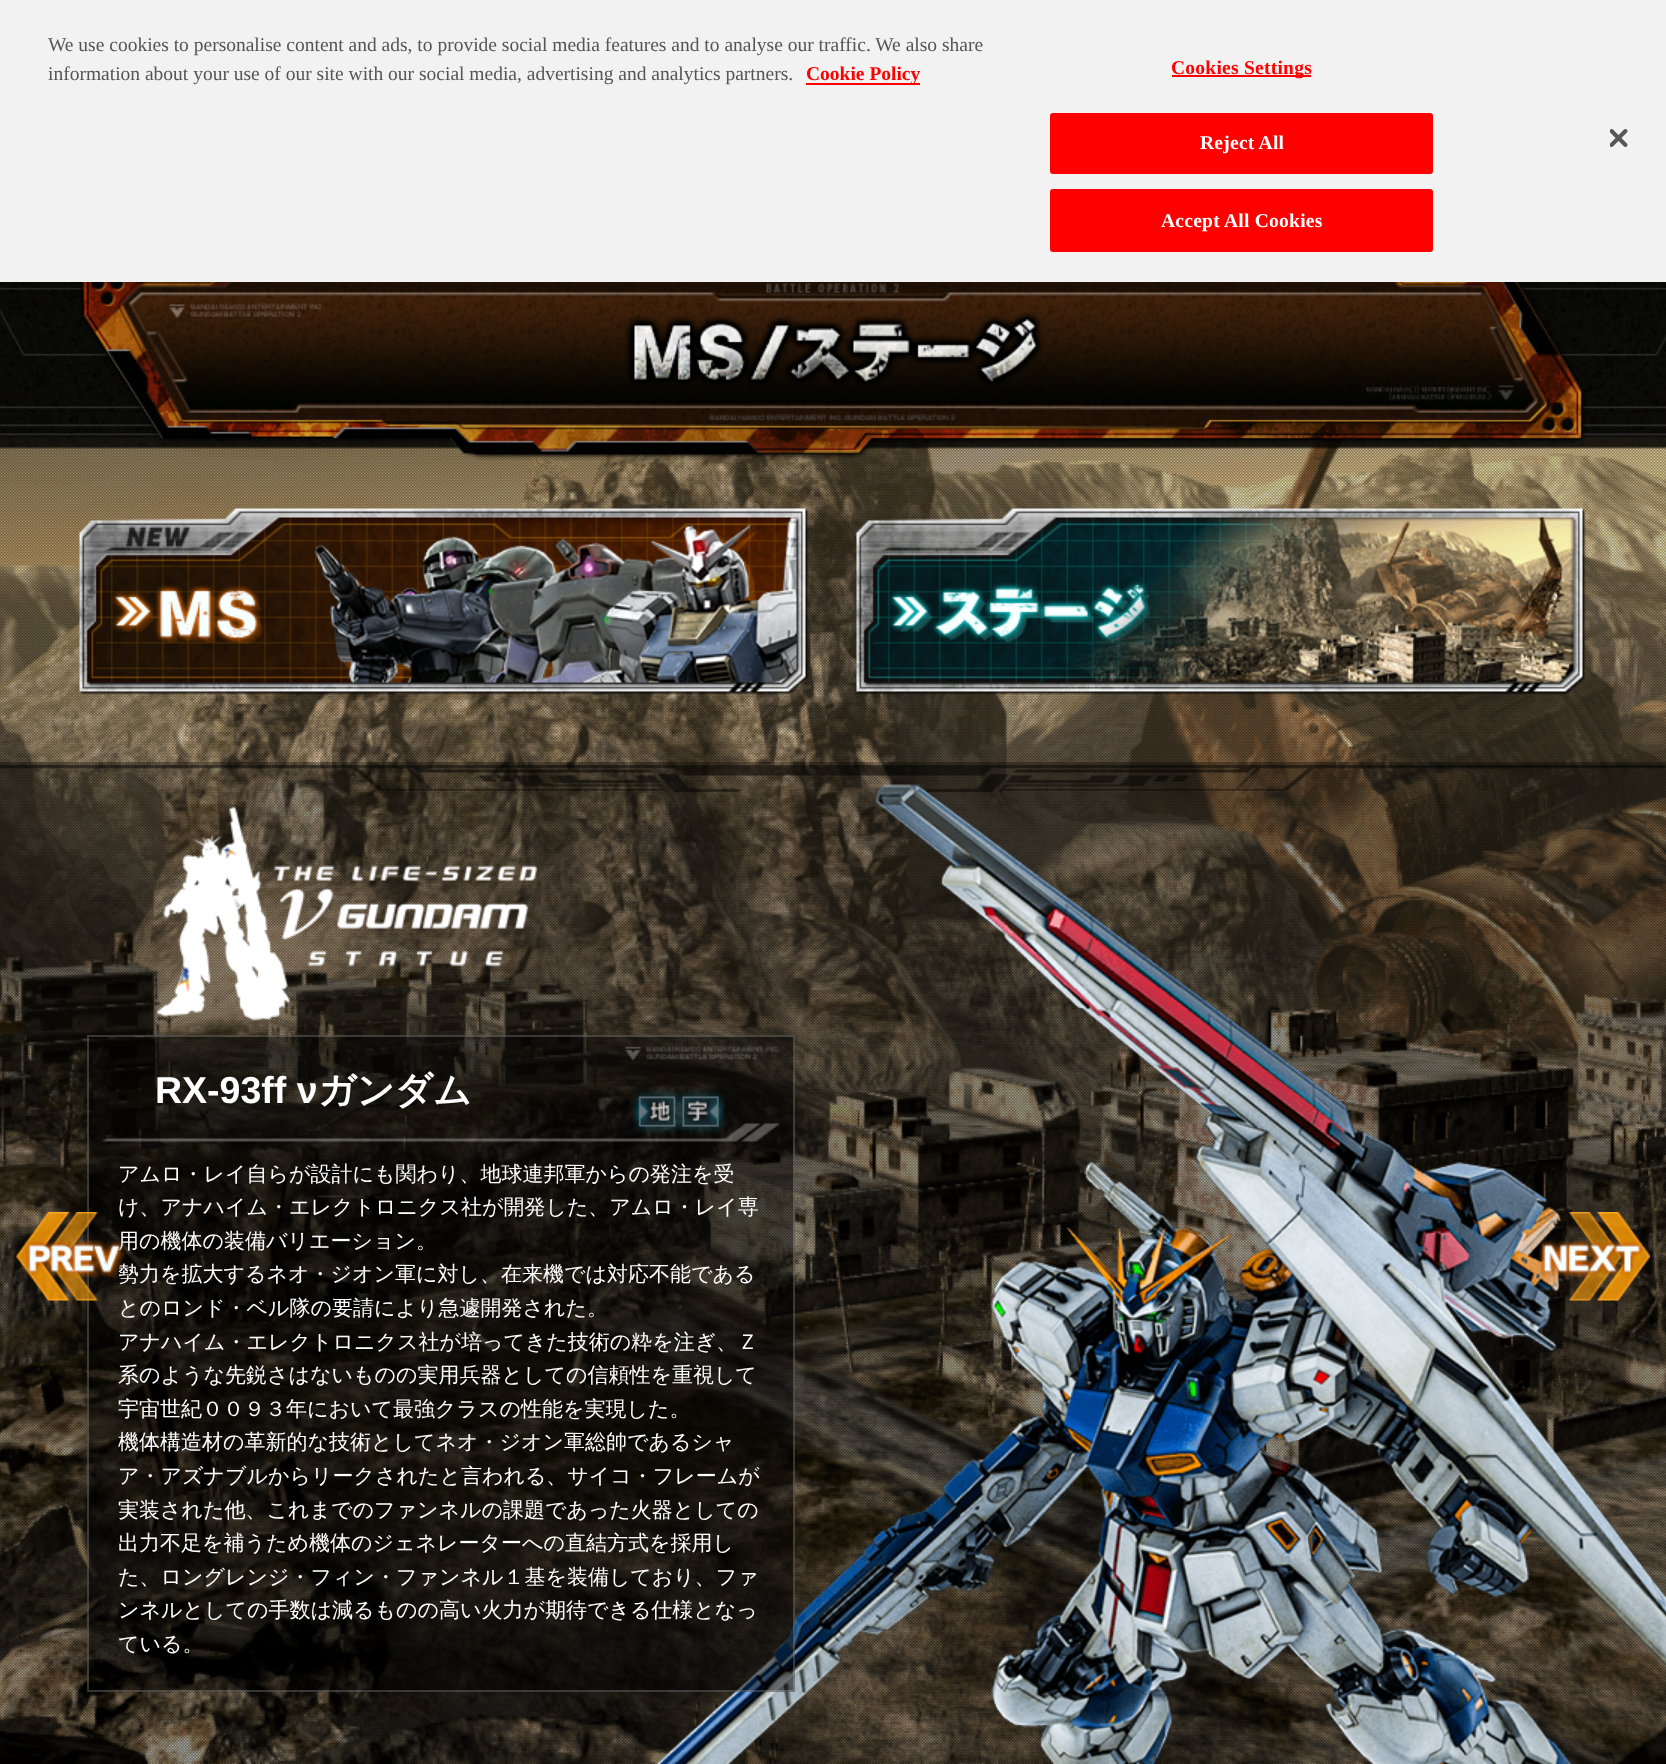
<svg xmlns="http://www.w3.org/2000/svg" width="1666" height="1764">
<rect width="100%" height="100%" fill="#fff"/>
<image x="0" y="282" width="1666" height="1482" href="media/2.png"/>
<image x="0" y="282" width="1666" height="167" href="media/3.png"/>
<image x="79" y="282" width="1508" height="179" href="media/4.png"/>
<rect width="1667" height="282" fill="#00000033" filter="blur(13.5px)"/>
<rect width="1666" height="282" fill="#f2f2f2"/>
<text x="48" y="51" style="font-family:Liberation Serif;font-size:19.5px;fill:#555">We use cookies to personalise content and ads, to provide social media features and to analyse our traffic. We also share</text>
<text x="48" y="80" style="font-family:Liberation Serif;font-size:19.5px;fill:#555">information about your use of our site with our social media, advertising and analytics partners.</text>
<rect x="806" y="83" width="114" height="2" fill="#f00"/>
<text x="806" y="80" style="font-family:Liberation Serif;font-size:19.5px;font-weight:bold;fill:#f00">Cookie Policy</text>
<rect x="1172" y="75" width="139" height="2" fill="#f00"/>
<text x="1171" y="74" style="font-family:Liberation Serif;font-size:19.5px;font-weight:bold;letter-spacing:0.25px;fill:#f00">Cookies Settings</text>
<rect x="1051" y="114" width="381" height="59" rx="2" fill="#f00" stroke="#f00" stroke-width="2"/>
<text x="1200" y="149" style="font-family:Liberation Serif;font-size:19.5px;font-weight:bold;letter-spacing:0.25px;fill:#fff">Reject All</text>
<rect x="1051" y="190" width="381" height="61" rx="2" fill="#f00" stroke="#f00" stroke-width="2"/>
<text x="1161" y="227" style="font-family:Liberation Serif;font-size:19.5px;font-weight:bold;letter-spacing:0.25px;fill:#fff">Accept All Cookies</text>
<image x="1610" y="129" width="18" height="18" href="media/1.png"/>
<image x="79" y="508" width="730" height="187" href="media/5.png"/>
<image x="125" y="526" width="66" height="22" href="media/6.png"/>
<image x="856" y="508" width="730" height="187" href="media/7.png"/>
<rect y="762" width="1666" height="1002" fill="#0000004d"/>
<image x="0" y="764" width="1666" height="28" href="media/8.png"/>
<image x="157" y="806" width="381" height="215" href="media/9.png"/>
<image x="655" y="784" width="1011" height="980" href="media/14.png"/>
<rect x="87" y="1035" width="708" height="657" fill="#00000080"/>
<image x="625" y="1045" width="155" height="16" href="media/10.png"/>
<rect x="88" y="1036" width="706" height="655" fill="none" stroke="#ffffff33" stroke-width="2"/>
<image x="102" y="1123" width="678" height="19" href="media/11.png"/>
<text x="155" y="1103" style="font-family:Liberation Sans;font-size:37.5px;font-weight:bold;fill:#fff">RX-93ff ν</text>
<text x="318" y="1103" style="font-family:WenQuanYi Zen Hei;font-size:37.5px;font-weight:bold;fill:#fff">ガンダム</text>
<image x="632" y="1089" width="50" height="45" href="media/12.png"/>
<image x="675" y="1089" width="51" height="45" href="media/13.png"/>
<text x="118" y="1181" style="font-family:WenQuanYi Zen Hei;font-size:21px;font-weight:500;fill:#fff">アムロ・レイ自らが設計にも関わり、地球連邦軍からの発注を受</text>
<text x="118" y="1214" style="font-family:WenQuanYi Zen Hei;font-size:21px;font-weight:500;fill:#fff">け、アナハイム・エレクトロニクス社が開発した、アムロ・レイ専</text>
<text x="118" y="1248" style="font-family:WenQuanYi Zen Hei;font-size:21px;font-weight:500;fill:#fff">用の機体の装備バリエーション。</text>
<text x="118" y="1281" style="font-family:WenQuanYi Zen Hei;font-size:21px;font-weight:500;fill:#fff">勢力を拡大するネオ・ジオン軍に対し、在来機では対応不能である</text>
<text x="118" y="1315" style="font-family:WenQuanYi Zen Hei;font-size:21px;font-weight:500;fill:#fff">とのロンド・ベル隊の要請により急遽開発された。</text>
<text x="118" y="1349" style="font-family:WenQuanYi Zen Hei;font-size:21px;font-weight:500;fill:#fff">アナハイム・エレクトロニクス社が培ってきた技術の粋を注ぎ、Ｚ</text>
<text x="118" y="1382" style="font-family:WenQuanYi Zen Hei;font-size:21px;font-weight:500;fill:#fff">系のような先鋭さはないものの実用兵器としての信頼性を重視して</text>
<text x="118" y="1416" style="font-family:WenQuanYi Zen Hei;font-size:21px;font-weight:500;fill:#fff">宇宙世紀００９３年において最強クラスの性能を実現した。</text>
<text x="118" y="1449" style="font-family:WenQuanYi Zen Hei;font-size:21px;font-weight:500;fill:#fff">機体構造材の革新的な技術としてネオ・ジオン軍総帥であるシャ</text>
<text x="118" y="1483" style="font-family:WenQuanYi Zen Hei;font-size:21px;font-weight:500;fill:#fff">ア・アズナブルからリークされたと言われる、サイコ・フレームが</text>
<text x="118" y="1517" style="font-family:WenQuanYi Zen Hei;font-size:21px;font-weight:500;fill:#fff">実装された他、これまでのファンネルの課題であった火器としての</text>
<text x="118" y="1550" style="font-family:WenQuanYi Zen Hei;font-size:21px;font-weight:500;fill:#fff">出力不足を補うため機体のジェネレーターへの直結方式を採用し</text>
<text x="118" y="1584" style="font-family:WenQuanYi Zen Hei;font-size:21px;font-weight:500;fill:#fff">た、ロングレンジ・フィン・ファンネル１基を装備しており、ファ</text>
<text x="118" y="1617" style="font-family:WenQuanYi Zen Hei;font-size:21px;font-weight:500;fill:#fff">ンネルとしての手数は減るものの高い火力が期待できる仕様となっ</text>
<text x="118" y="1651" style="font-family:WenQuanYi Zen Hei;font-size:21px;font-weight:500;fill:#fff">ている。</text>
<image x="16" y="1212" width="110" height="89" href="media/15.png"/>
<image x="1538" y="1212" width="112" height="89" href="media/16.png"/>
</svg>
